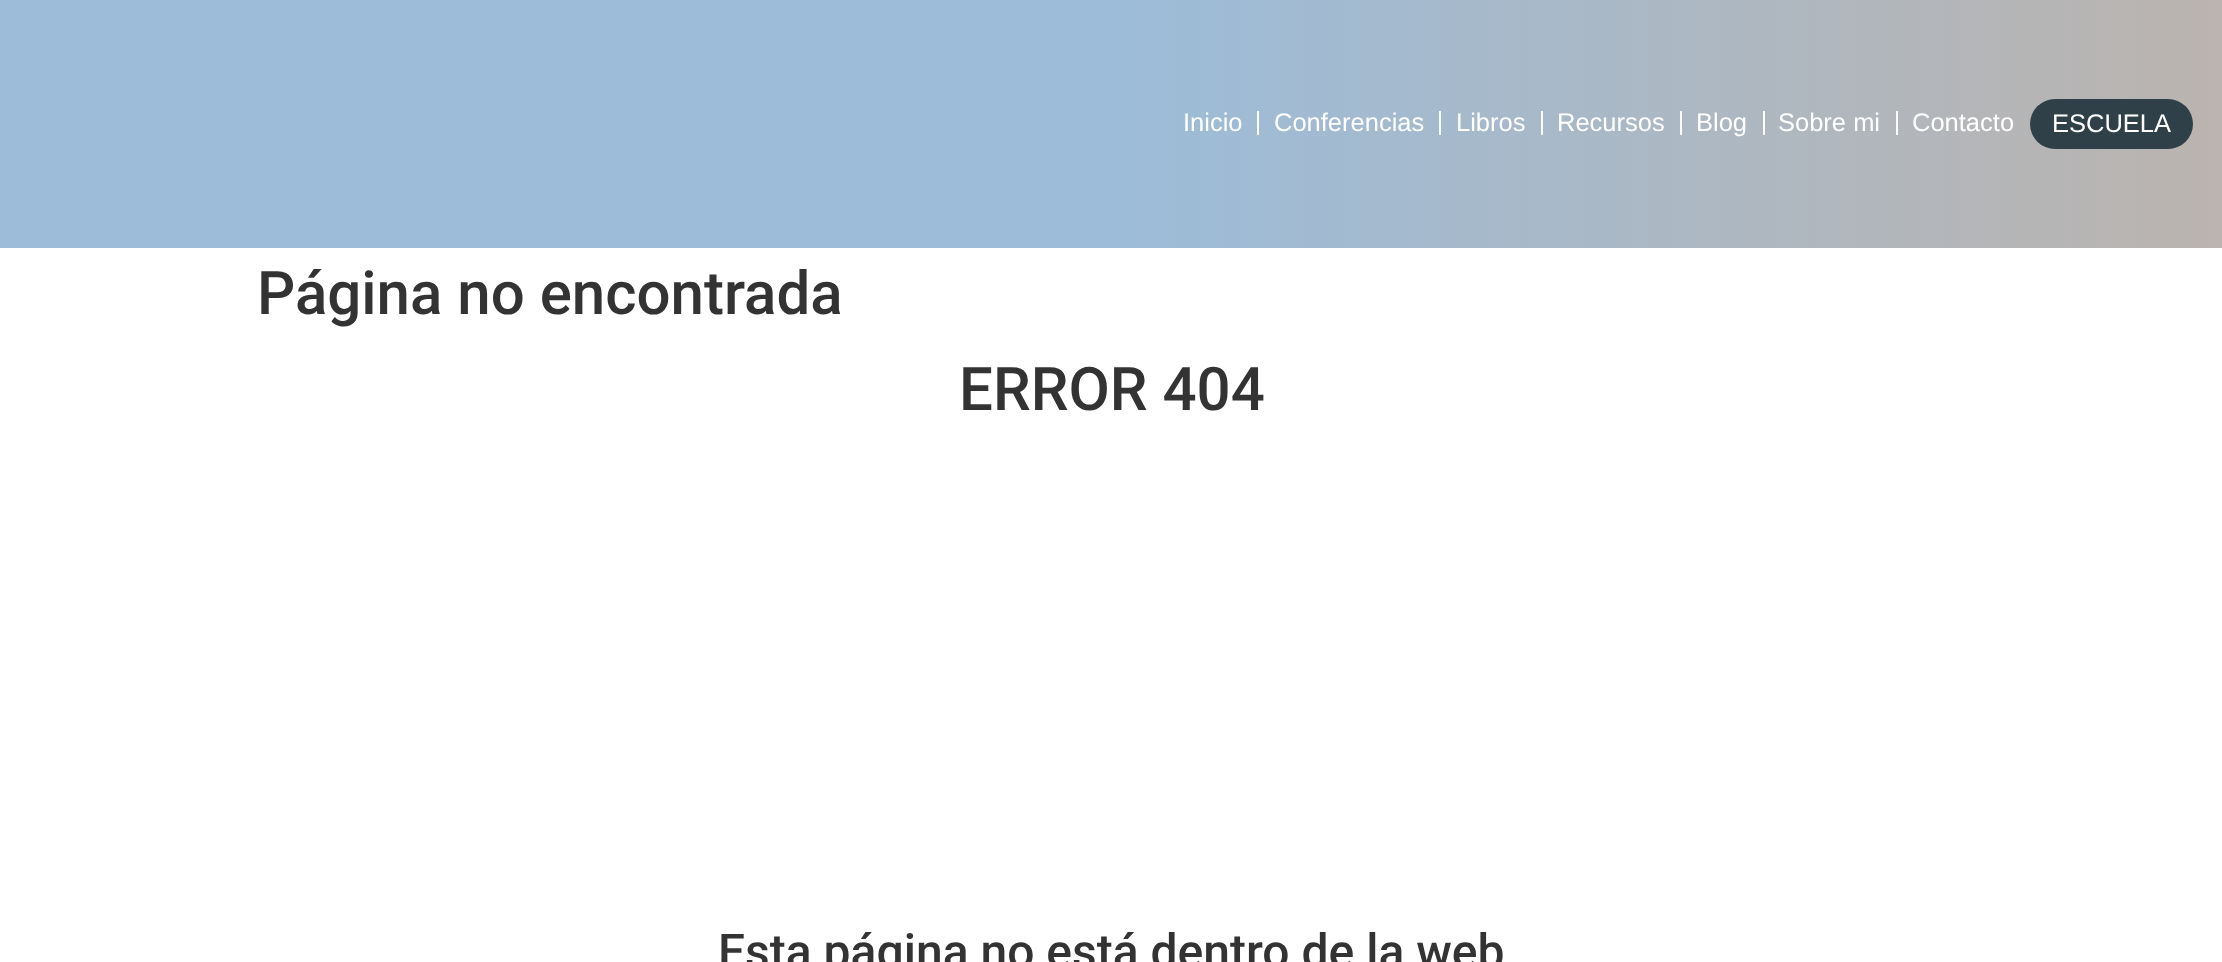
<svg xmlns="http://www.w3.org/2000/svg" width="2222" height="962">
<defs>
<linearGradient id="g1" gradientUnits="userSpaceOnUse" x1="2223" y1="124" x2="0" y2="124"><stop offset="0" stop-color="#bbb4af"/><stop offset="0.5" stop-color="#9cbcd9"/></linearGradient>
</defs>
<rect width="100%" height="100%" fill="#fff"/>
<rect width="2222" height="248" fill="url(#g1)"/>
<text x="1183" y="131" style="font-family:Liberation Sans;font-size:25.5px;fill:#fff">Inicio</text>
<rect x="1257" y="111" width="2" height="24" fill="#fff"/>
<text x="1274" y="131" style="font-family:Liberation Sans;font-size:25.5px;fill:#fff">Conferencias</text>
<rect x="1439" y="111" width="2" height="24" fill="#fff"/>
<text x="1456" y="131" style="font-family:Liberation Sans;font-size:25.5px;fill:#fff">Libros</text>
<rect x="1541" y="111" width="2" height="24" fill="#fff"/>
<text x="1557" y="131" style="font-family:Liberation Sans;font-size:25.5px;fill:#fff">Recursos</text>
<rect x="1680" y="111" width="2" height="24" fill="#fff"/>
<text x="1696" y="131" style="font-family:Liberation Sans;font-size:25.5px;fill:#fff">Blog</text>
<rect x="1763" y="111" width="2" height="24" fill="#fff"/>
<text x="1778" y="131" style="font-family:Liberation Sans;font-size:25.5px;fill:#fff">Sobre mi</text>
<rect x="1896" y="111" width="2" height="24" fill="#fff"/>
<text x="1912" y="131" style="font-family:Liberation Sans;font-size:25.5px;fill:#fff">Contacto</text>
<rect x="2030" y="99" width="163" height="50" rx="25" fill="#2f4048"/>
<text x="2052" y="132" style="font-family:Liberation Sans;font-size:25.5px;fill:#fff">ESCUELA</text>
<text x="257" y="314" style="font-family:Roboto;font-size:60px;font-weight:500;fill:#333">Página no encontrada</text>
<text x="959" y="410" style="font-family:Roboto;font-size:60px;font-weight:500;fill:#333">ERROR 404</text>
<text x="718" y="968" style="font-family:Roboto;font-size:48px;font-weight:500;fill:#333">Esta página no está dentro de la web</text>
</svg>
